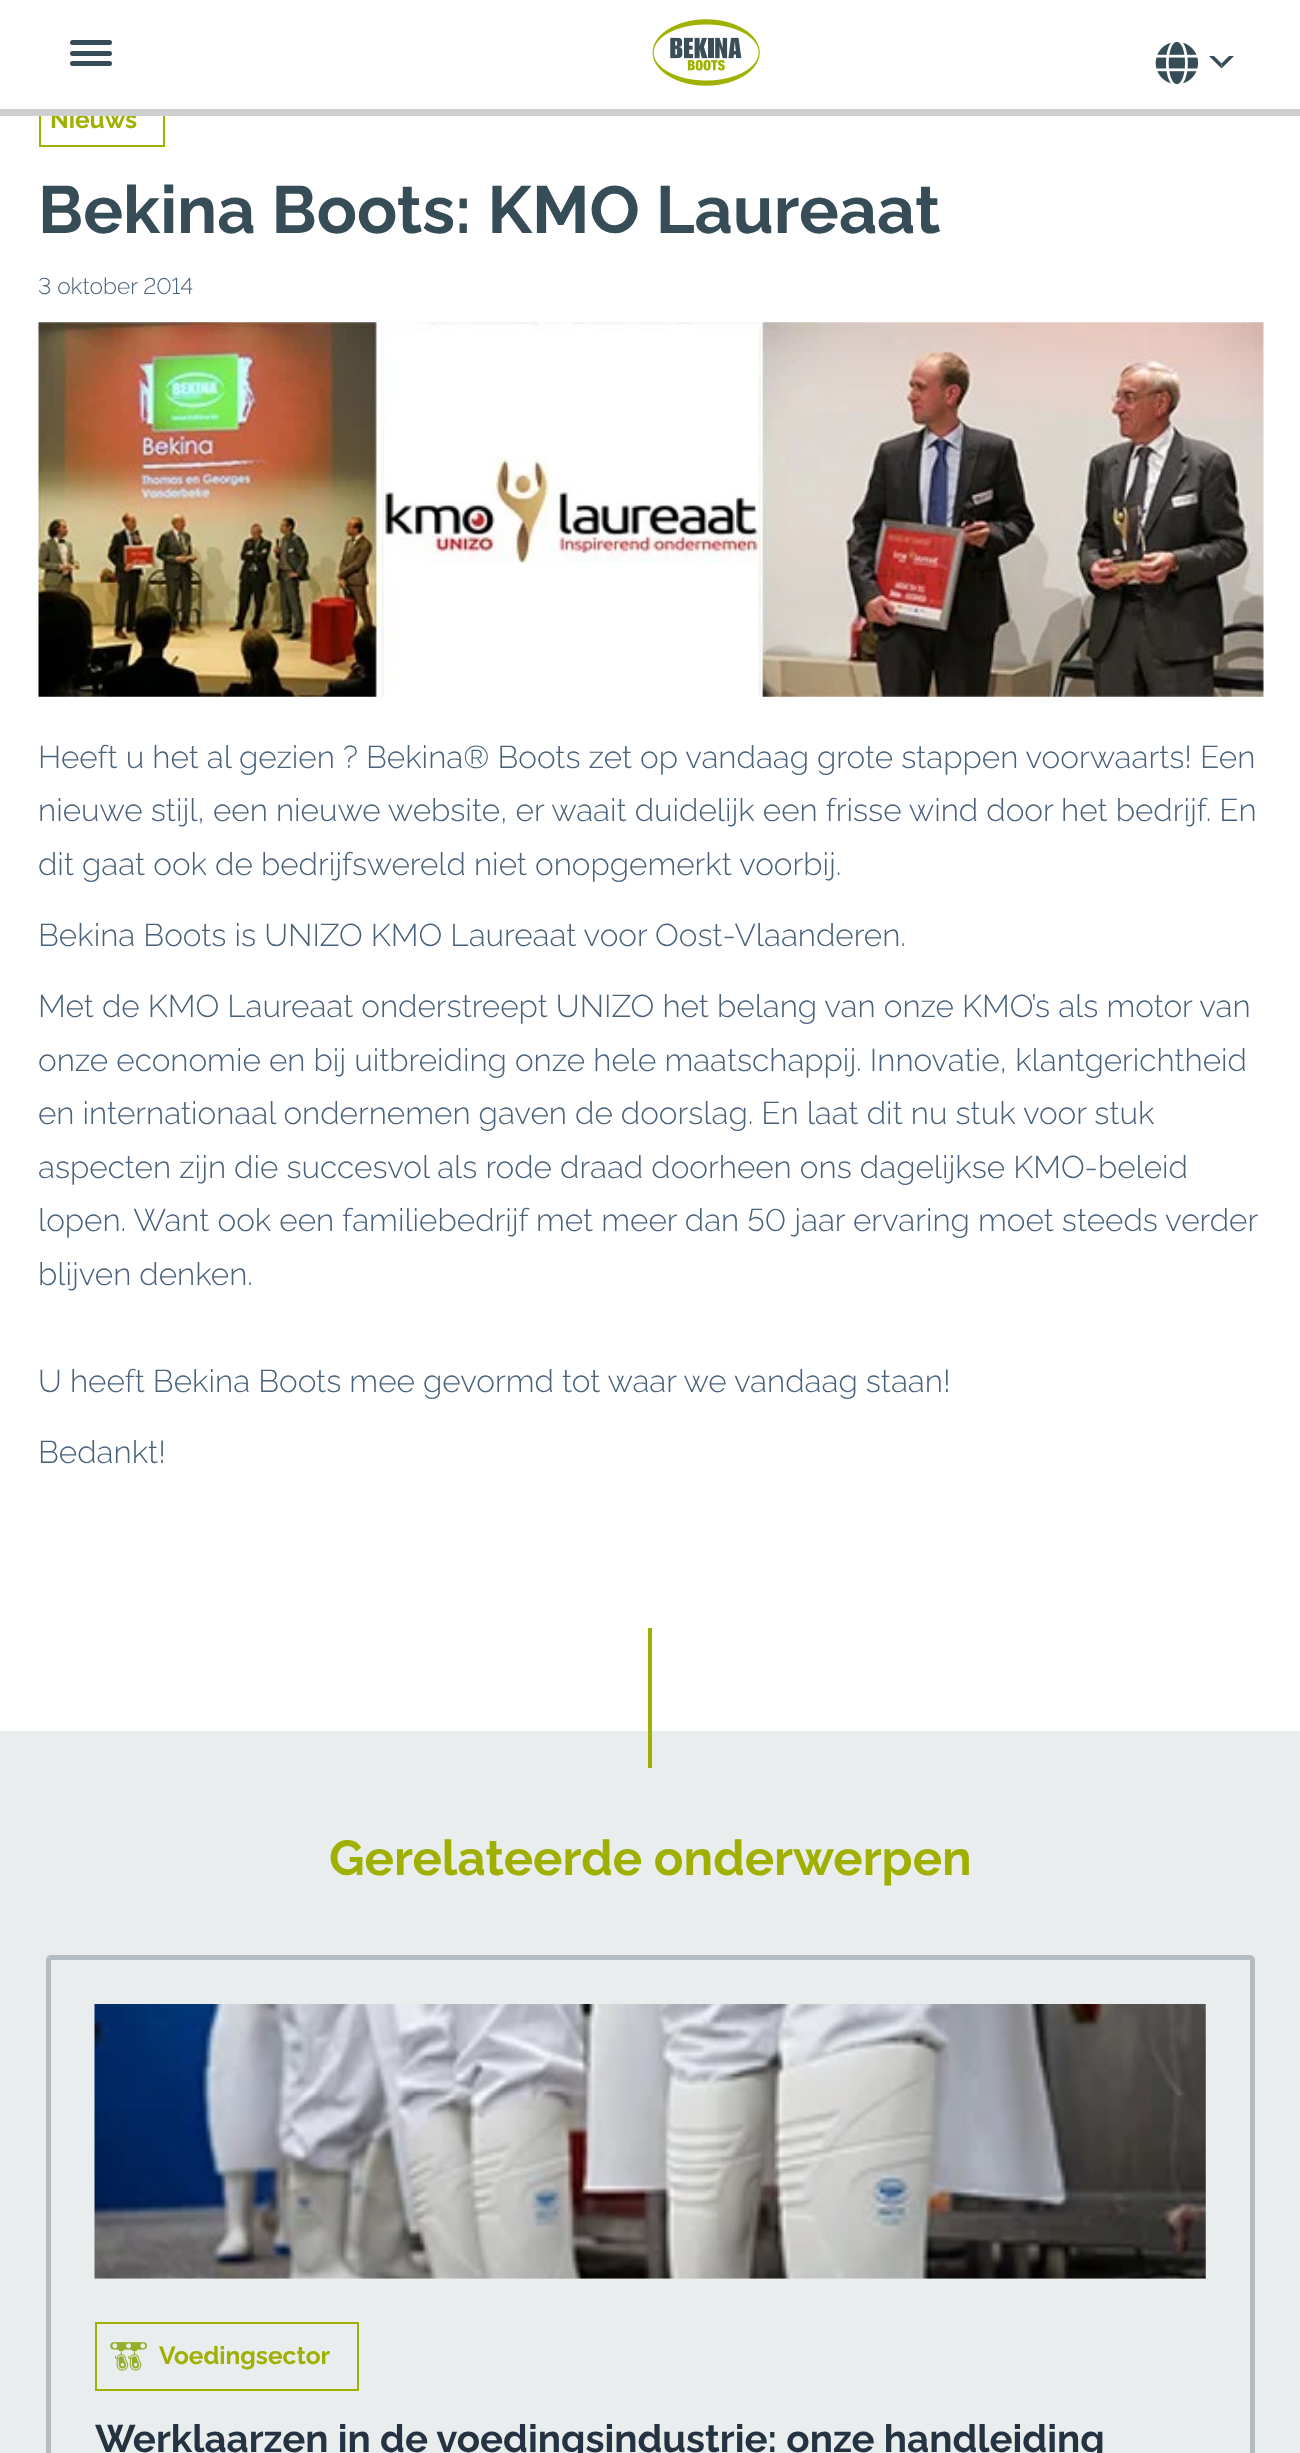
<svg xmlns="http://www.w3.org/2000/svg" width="1300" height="2453">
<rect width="100%" height="100%" fill="#fff"/>
<rect x="40" y="94" width="124" height="52" fill="none" stroke="#9fb000" stroke-width="2"/>
<text x="50" y="128" style="font-family:Raleway;font-size:24.5px;font-weight:bold;fill:#9fb000">Nieuws</text>
<rect y="109" width="1300" height="7" fill="#cdcfd0"/>
<rect x="39" y="93" width="126" height="16" fill="#fff"/>
<rect x="70" y="40" width="42" height="5" rx="2.5" fill="#364c56"/>
<rect x="70" y="51" width="42" height="5" rx="2.5" fill="#364c56"/>
<rect x="70" y="61" width="42" height="5" rx="2.5" fill="#364c56"/>
<image x="652" y="19" width="108" height="67" href="media/1.png"/>
<image x="1155" y="42" width="44" height="43" href="media/2.png"/>
<path d="M1234 56l-12.5 12.5v-5l7.5-7.5z" fill="#364c56"/>
<path d="M1221.5 68.5l-12.5-12.5h5l7.5 7.5z" fill="#364c56"/>
<text x="38" y="233" style="font-family:Raleway;font-size:66.5px;font-weight:bold;fill:#364c56">Bekina Boots: KMO Laureaat</text>
<text x="38" y="294" style="font-family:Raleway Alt;font-size:22.75px;font-weight:300;fill:#49617b">3 oktober 2014</text>
<image x="38" y="322" width="1226" height="375" href="media/3.png"/>
<text x="38" y="768" style="font-family:Raleway;font-size:31.5px;font-weight:300;fill:#49617b">Heeft u het al gezien ? Bekina® Boots zet op vandaag grote stappen voorwaarts! Een</text>
<text x="38" y="821" style="font-family:Raleway;font-size:31.5px;font-weight:300;fill:#49617b">nieuwe stijl, een nieuwe website, er waait duidelijk een frisse wind door het bedrijf. En</text>
<text x="38" y="875" style="font-family:Raleway;font-size:31.5px;font-weight:300;fill:#49617b">dit gaat ook de bedrijfswereld niet onopgemerkt voorbij.</text>
<text x="38" y="946" style="font-family:Raleway;font-size:31.5px;font-weight:300;fill:#49617b">Bekina Boots is UNIZO KMO Laureaat voor Oost-Vlaanderen.</text>
<text x="38" y="1017" style="font-family:Raleway;font-size:31.5px;font-weight:300;fill:#49617b">Met de KMO Laureaat onderstreept UNIZO het belang van onze KMO’s als motor van</text>
<text x="38" y="1071" style="font-family:Raleway;font-size:31.5px;font-weight:300;fill:#49617b">onze economie en bij uitbreiding onze hele maatschappij. Innovatie, klantgerichtheid</text>
<text x="38" y="1124" style="font-family:Raleway;font-size:31.5px;font-weight:300;fill:#49617b">en internationaal ondernemen gaven de doorslag. En laat dit nu stuk voor stuk</text>
<text x="38" y="1178" style="font-family:Raleway;font-size:31.5px;font-weight:300;fill:#49617b">aspecten zijn die succesvol als rode draad doorheen ons dagelijkse KMO-beleid</text>
<text x="38" y="1231" style="font-family:Raleway Alt;font-size:31.5px;font-weight:300;fill:#49617b">lopen. Want ook een familiebedrijf met meer dan 50 jaar ervaring moet steeds verder</text>
<text x="38" y="1285" style="font-family:Raleway;font-size:31.5px;font-weight:300;fill:#49617b">blijven denken.</text>
<text x="38" y="1392" style="font-family:Raleway;font-size:31.5px;font-weight:300;fill:#49617b">U heeft Bekina Boots mee gevormd tot waar we vandaag staan!</text>
<text x="38" y="1463" style="font-family:Raleway;font-size:31.5px;font-weight:300;fill:#49617b">Bedankt!</text>
<rect y="1731" width="1300" height="722" fill="#e9eded"/>
<rect x="648" y="1628" width="4" height="140" fill="#9fb000"/>
<text x="329" y="1875" style="font-family:Raleway;font-size:49px;font-weight:bold;fill:#9fb000">Gerelateerde onderwerpen</text>
<rect x="48.5" y="1957.5" width="1204" height="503" rx="2.5" fill="none" stroke="#b3bcc0" stroke-width="5"/>
<image x="94" y="2004" width="1112" height="275" href="media/4.png"/>
<rect x="96" y="2323" width="262" height="67" fill="none" stroke="#9fb000" stroke-width="2"/>
<image x="110" y="2342" width="38" height="29" href="media/5.png"/>
<text x="159" y="2364" style="font-family:Raleway;font-size:24.5px;font-weight:bold;fill:#9fb000">Voedingsector</text>
<text x="95" y="2452" style="font-family:Raleway;font-size:38.5px;font-weight:bold;fill:#243241">Werklaarzen in de voedingsindustrie: onze handleiding</text>
</svg>
